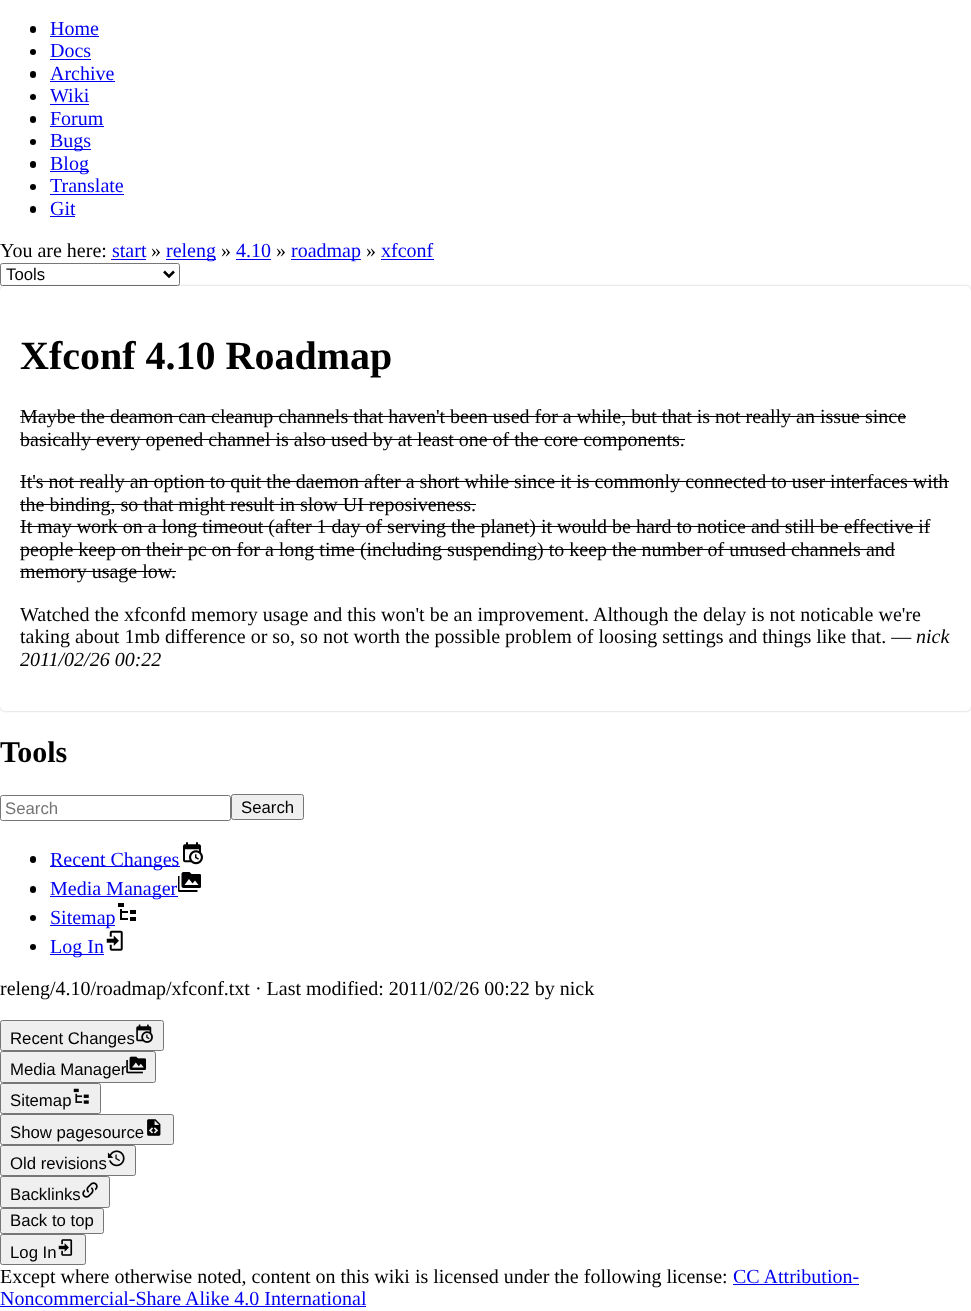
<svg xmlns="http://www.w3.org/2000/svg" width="971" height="1311">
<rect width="100%" height="100%" fill="#fff"/>
<rect x="30" y="26" width="6" height="7" rx="3" fill="#000"/>
<text x="50" y="35" style="font-family:Liberation Serif;font-size:20px;fill:#00e">Home</text>
<rect x="50" y="36" width="49" height="1" fill="#00e"/>
<circle cx="33" cy="52" r="3" fill="#000"/>
<text x="50" y="57" style="font-family:Liberation Serif;font-size:20px;fill:#00e">Docs</text>
<rect x="50" y="59" width="41" height="1" fill="#00e"/>
<rect x="30" y="71" width="6" height="7" rx="3" fill="#000"/>
<text x="50" y="80" style="font-family:Liberation Serif;font-size:20px;fill:#00e">Archive</text>
<rect x="50" y="81" width="65" height="1" fill="#00e"/>
<circle cx="33" cy="97" r="3" fill="#000"/>
<text x="50" y="102" style="font-family:Liberation Serif;font-size:20px;fill:#00e">Wiki</text>
<rect x="50" y="104" width="39" height="1" fill="#00e"/>
<rect x="30" y="116" width="6" height="7" rx="3" fill="#000"/>
<text x="50" y="125" style="font-family:Liberation Serif;font-size:20px;fill:#00e">Forum</text>
<rect x="50" y="126" width="54" height="1" fill="#00e"/>
<circle cx="33" cy="142" r="3" fill="#000"/>
<rect x="50" y="149" width="41" height="1" fill="#00e"/>
<text x="50" y="147" style="font-family:Liberation Serif;font-size:20px;fill:#00e">Bugs</text>
<rect x="30" y="161" width="6" height="7" rx="3" fill="#000"/>
<rect x="50" y="171" width="39" height="1" fill="#00e"/>
<text x="50" y="170" style="font-family:Liberation Serif;font-size:20px;fill:#00e">Blog</text>
<circle cx="33" cy="187" r="3" fill="#000"/>
<text x="50" y="192" style="font-family:Liberation Serif;font-size:20px;fill:#00e">Translate</text>
<rect x="50" y="194" width="74" height="1" fill="#00e"/>
<rect x="30" y="206" width="6" height="7" rx="3" fill="#000"/>
<text x="50" y="215" style="font-family:Liberation Serif;font-size:20px;fill:#00e">Git</text>
<rect x="50" y="216" width="25" height="1" fill="#00e"/>
<text x="0" y="257" style="font-family:Liberation Serif;font-size:20px;fill:#000">You are here:</text>
<text x="112" y="257" style="font-family:Liberation Serif;font-size:20px;fill:#00e">start</text>
<rect x="111" y="259" width="35" height="1" fill="#00e"/>
<text x="151" y="257" style="font-family:Liberation Serif;font-size:20px;fill:#000">»</text>
<rect x="166" y="259" width="50" height="1" fill="#00e"/>
<text x="166" y="257" style="font-family:Liberation Serif;font-size:20px;fill:#00e">releng</text>
<text x="221" y="257" style="font-family:Liberation Serif;font-size:20px;fill:#000">»</text>
<text x="236" y="257" style="font-family:Liberation Serif;font-size:20px;fill:#00e">4.10</text>
<rect x="236" y="259" width="35" height="1" fill="#00e"/>
<text x="276" y="257" style="font-family:Liberation Serif;font-size:20px;fill:#000">»</text>
<rect x="291" y="259" width="70" height="1" fill="#00e"/>
<text x="291" y="257" style="font-family:Liberation Serif;font-size:20px;fill:#00e">roadmap</text>
<text x="366" y="257" style="font-family:Liberation Serif;font-size:20px;fill:#000">»</text>
<text x="381" y="257" style="font-family:Liberation Serif;font-size:20px;fill:#00e">xfconf</text>
<rect x="381" y="259" width="53" height="1" fill="#00e"/>
<rect x="0.5" y="263.5" width="179" height="22" rx="2" fill="none" stroke="#767676"/>
<path d="M164 271.5l5 5l5-5" fill="none" stroke="#000" stroke-width="2.5"/>
<text x="6" y="280" style="font-family:Liberation Sans;font-size:16.75px;fill:#000">Tools</text>
<rect y="286" width="971" height="425" rx="5" fill="#00000040" filter="blur(1px)"/>
<rect y="286" width="971" height="425" rx="5" fill="#fff"/>
<text x="20" y="369" style="font-family:Liberation Serif;font-size:40px;font-weight:bold;fill:#000">Xfconf 4.10 Roadmap</text>
<text x="20" y="423" style="font-family:Liberation Serif;font-size:20px;fill:#000">Maybe the deamon can cleanup channels that haven't been used for a while, but that is not really an issue since</text>
<rect x="20" y="416" width="886" height="1" fill="#000"/>
<text x="20" y="446" style="font-family:Liberation Serif;font-size:20px;fill:#000">basically every opened channel is also used by at least one of the core components.</text>
<rect x="20" y="439" width="665" height="1" fill="#000"/>
<text x="20" y="488" style="font-family:Liberation Serif;font-size:20px;fill:#000">It's not really an option to quit the daemon after a short while since it is commonly connected to user interfaces with</text>
<rect x="20" y="481" width="929" height="1" fill="#000"/>
<text x="20" y="511" style="font-family:Liberation Serif;font-size:20px;fill:#000">the binding, so that might result in slow UI reposiveness.</text>
<rect x="20" y="504" width="456" height="1" fill="#000"/>
<text x="20" y="533" style="font-family:Liberation Serif;font-size:20px;fill:#000">It may work on a long timeout (after 1 day of serving the planet) it would be hard to notice and still be effective if</text>
<rect x="20" y="526" width="910" height="1" fill="#000"/>
<text x="20" y="556" style="font-family:Liberation Serif;font-size:20px;fill:#000">people keep on their pc on for a long time (including suspending) to keep the number of unused channels and</text>
<rect x="20" y="549" width="875" height="1" fill="#000"/>
<text x="20" y="578" style="font-family:Liberation Serif;font-size:20px;fill:#000">memory usage low.</text>
<rect x="20" y="571" width="156" height="1" fill="#000"/>
<text x="20" y="621" style="font-family:Liberation Serif;font-size:20px;fill:#000">Watched the xfconfd memory usage and this won't be an improvement. Although the delay is not noticable we're</text>
<text x="20" y="643" style="font-family:Liberation Serif;font-size:20px;fill:#000">taking about 1mb difference or so, so not worth the possible problem of loosing settings and things like that. —</text>
<text x="916" y="643" style="font-family:Liberation Serif;font-size:20px;font-style:italic;fill:#000">nick</text>
<text x="20" y="666" style="font-family:Liberation Serif;font-size:20px;font-style:italic;fill:#000">2011/02/26 00:22</text>
<text x="0" y="762" style="font-family:Liberation Serif;font-size:30px;font-weight:bold;fill:#000">Tools</text>
<rect x="0.5" y="795.5" width="230" height="25" rx="2" fill="none" stroke="#767676"/>
<text x="5" y="814" style="font-family:Liberation Sans;font-size:16.75px;fill:#757575">Search</text>
<rect x="231.5" y="794.5" width="72" height="25" rx="2" fill="#efefef" stroke="#767676"/>
<text x="241" y="813" style="font-family:Liberation Sans;font-size:16.75px;fill:#000">Search</text>
<rect x="30" y="856" width="6" height="7" rx="3" fill="#000"/>
<rect x="50" y="866" width="130" height="1" fill="#00e"/>
<text x="50" y="866" style="font-family:Liberation Serif;font-size:20px;fill:#00e">Recent Changes</text>
<image x="183" y="842" width="20" height="23" href="media/1.png"/>
<rect x="30" y="886" width="6" height="7" rx="3" fill="#000"/>
<rect x="50" y="896" width="128" height="1" fill="#00e"/>
<text x="50" y="895" style="font-family:Liberation Serif;font-size:20px;fill:#00e">Media Manager</text>
<image x="178" y="872" width="23" height="20" href="media/2.png"/>
<circle cx="33" cy="918" r="3" fill="#000"/>
<rect x="50" y="925" width="65" height="1" fill="#00e"/>
<text x="50" y="924" style="font-family:Liberation Serif;font-size:20px;fill:#00e">Sitemap</text>
<image x="118" y="903" width="18" height="18" href="media/3.png"/>
<circle cx="33" cy="947" r="3" fill="#000"/>
<rect x="50" y="954" width="54" height="1" fill="#00e"/>
<text x="50" y="953" style="font-family:Liberation Serif;font-size:20px;fill:#00e">Log In</text>
<image x="106" y="930" width="17" height="21" href="media/4.png"/>
<text x="0" y="995" style="font-family:Liberation Serif;font-size:20px;fill:#000">releng/4.10/roadmap/xfconf.txt · Last modified: 2011/02/26 00:22 by nick</text>
<rect x="0.5" y="1020.5" width="163" height="30" rx="2" fill="#efefef" stroke="#767676"/>
<text x="10" y="1044" style="font-family:Liberation Sans;font-size:16.75px;fill:#000">Recent Changes</text>
<image x="136" y="1024" width="17" height="19" href="media/5.png"/>
<rect x="0.5" y="1051.5" width="155" height="31" rx="2" fill="#efefef" stroke="#767676"/>
<text x="10" y="1075" style="font-family:Liberation Sans;font-size:16.75px;fill:#000">Media Manager</text>
<image x="126" y="1056" width="20" height="18" href="media/6.png"/>
<rect x="0.5" y="1083.5" width="100" height="30" rx="2" fill="#efefef" stroke="#767676"/>
<text x="10" y="1106" style="font-family:Liberation Sans;font-size:16.75px;fill:#000">Sitemap</text>
<image x="73" y="1088" width="16" height="16" href="media/7.png"/>
<rect x="0.5" y="1114.5" width="173" height="30" rx="2" fill="#efefef" stroke="#767676"/>
<text x="10" y="1138" style="font-family:Liberation Sans;font-size:16.75px;fill:#000">Show pagesource</text>
<image x="147" y="1119" width="14" height="17" href="media/8.png"/>
<rect x="0.5" y="1145.5" width="135" height="30" rx="2" fill="#efefef" stroke="#767676"/>
<text x="10" y="1169" style="font-family:Liberation Sans;font-size:16.75px;fill:#000">Old revisions</text>
<image x="107" y="1150" width="18" height="17" href="media/9.png"/>
<rect x="0.5" y="1176.5" width="109" height="31" rx="2" fill="#efefef" stroke="#767676"/>
<text x="10" y="1200" style="font-family:Liberation Sans;font-size:16.75px;fill:#000">Backlinks</text>
<image x="82" y="1182" width="16" height="16" href="media/10.png"/>
<rect x="0.5" y="1208.5" width="103" height="25" rx="2" fill="#efefef" stroke="#767676"/>
<text x="10" y="1226" style="font-family:Liberation Sans;font-size:16.75px;fill:#000">Back to top</text>
<rect x="0.5" y="1234.5" width="85" height="30" rx="2" fill="#efefef" stroke="#767676"/>
<text x="10" y="1258" style="font-family:Liberation Sans;font-size:16.75px;fill:#000">Log In</text>
<image x="58" y="1239" width="15" height="17" href="media/11.png"/>
<text x="0" y="1283" style="font-family:Liberation Serif;font-size:20px;fill:#000">Except where otherwise noted, content on this wiki is licensed under the following license:</text>
<text x="733" y="1283" style="font-family:Liberation Serif;font-size:20px;fill:#00e">CC Attribution-</text>
<rect x="733" y="1284" width="126" height="1" fill="#00e"/>
<text x="0" y="1305" style="font-family:Liberation Serif;font-size:20px;fill:#00e">Noncommercial-Share Alike 4.0 International</text>
<rect y="1306" width="366" height="1" fill="#00e"/>
</svg>
